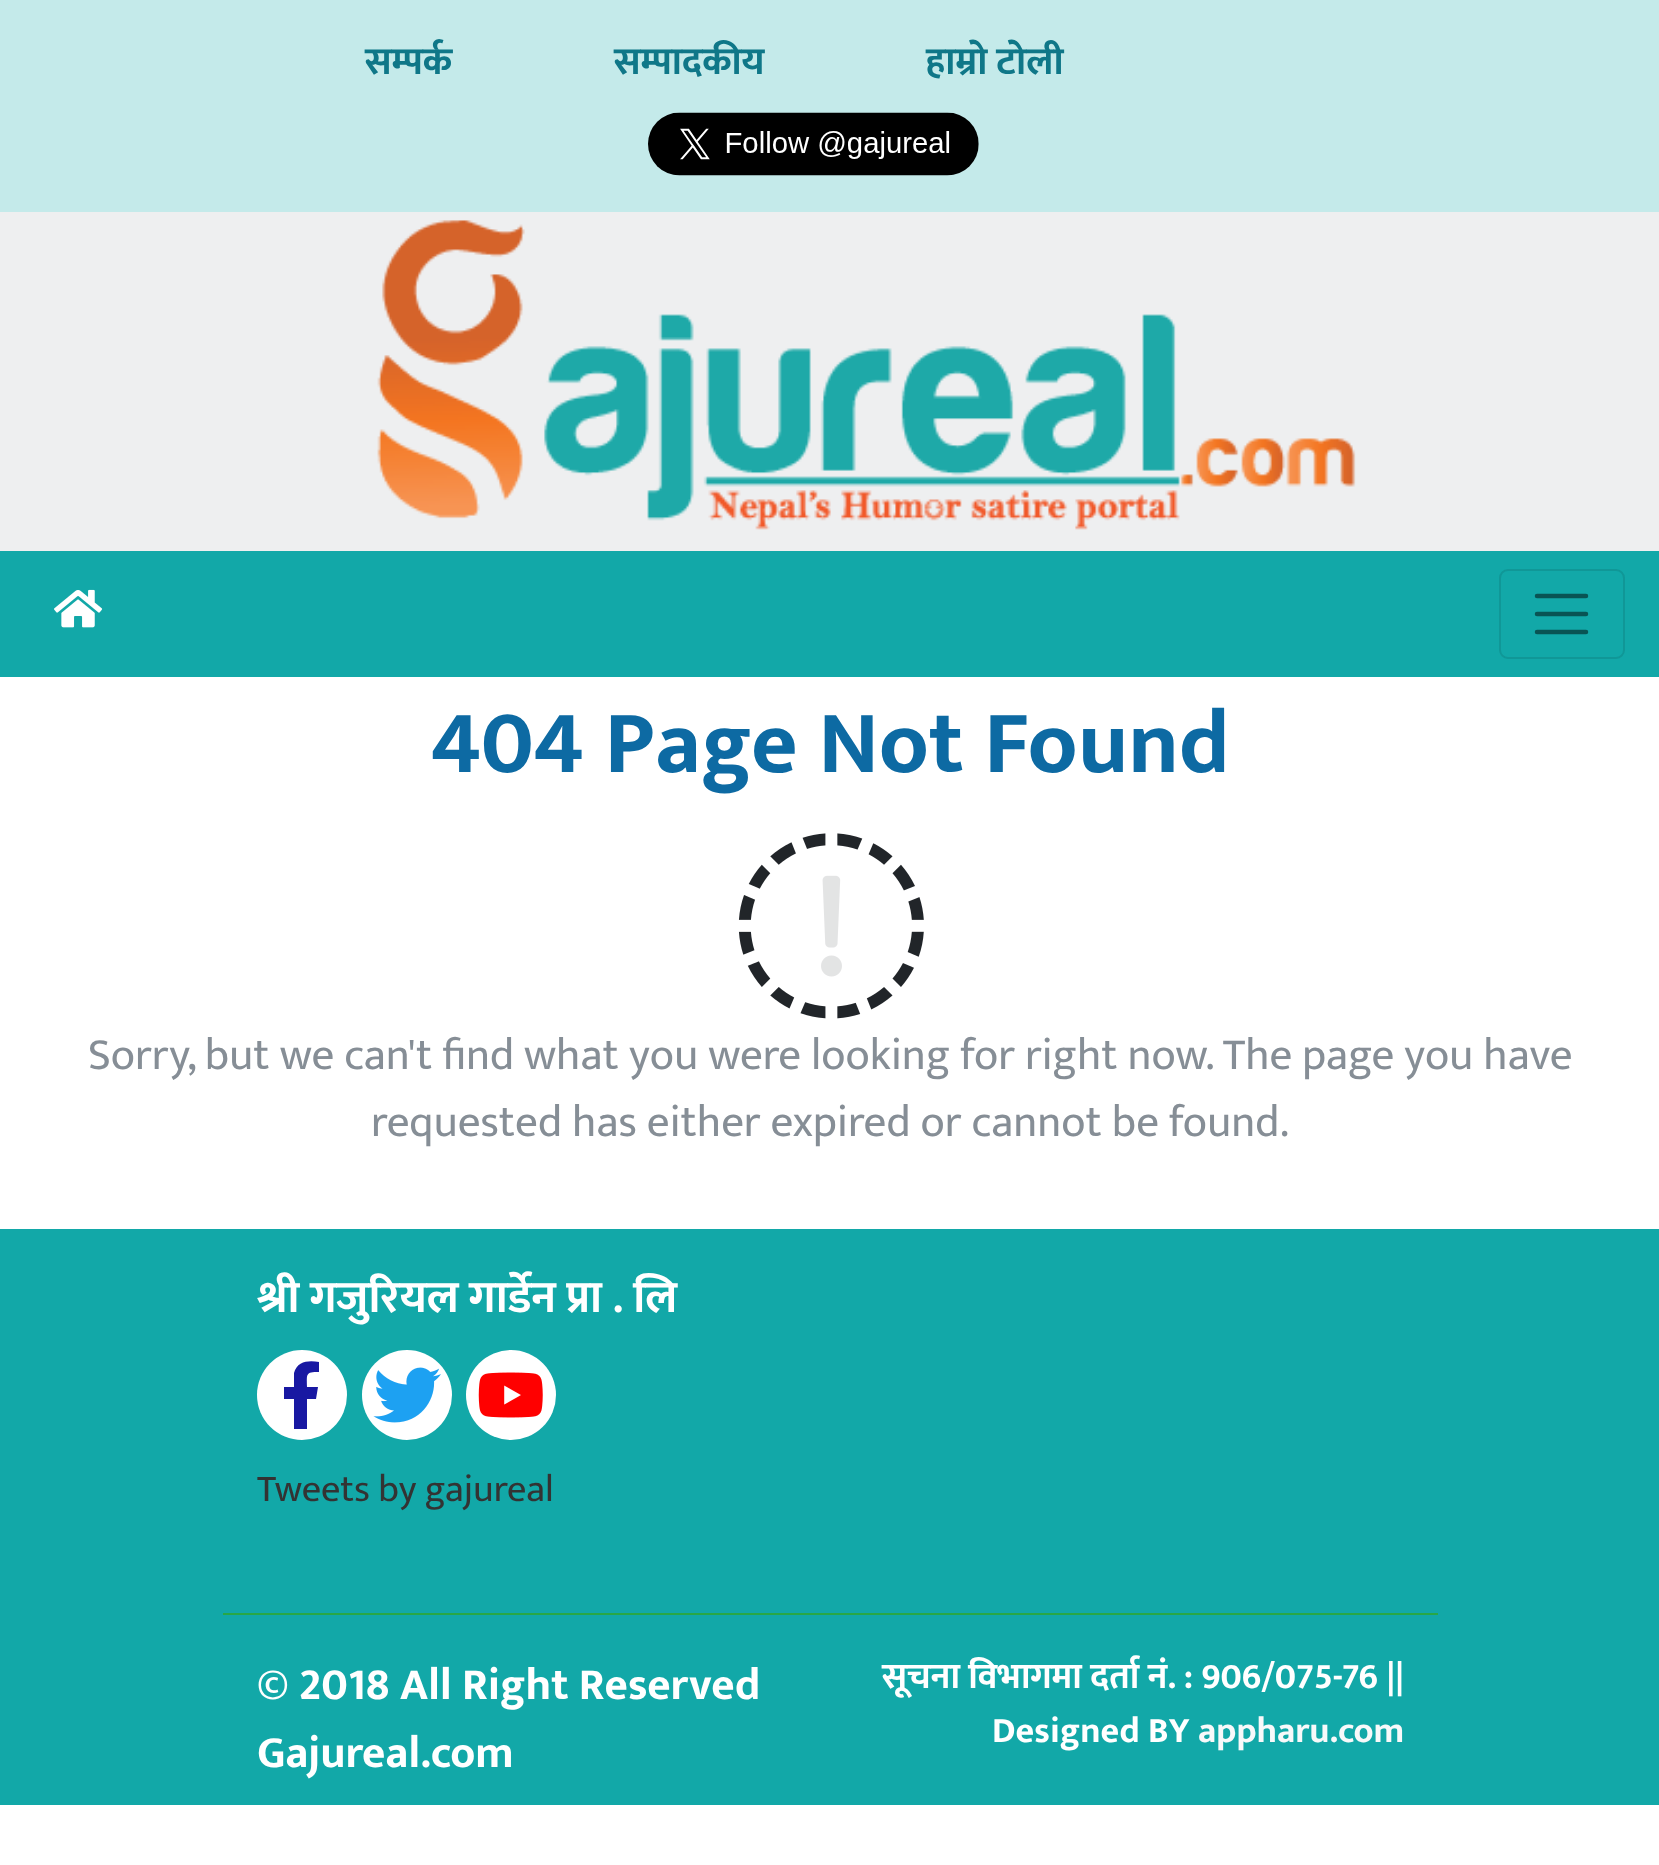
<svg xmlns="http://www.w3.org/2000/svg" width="1659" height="1865">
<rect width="100%" height="100%" fill="#fff"/>
<rect width="1659" height="212" fill="#c4eaea"/>
<text x="365" y="74" style="font-family:Mukta;font-size:38.25px;font-weight:bold;fill:#0f7788">सम्पर्क</text>
<text x="614" y="74" style="font-family:Mukta;font-size:38.25px;font-weight:bold;fill:#0f7788">सम्पादकीय</text>
<text x="926" y="74" style="font-family:Mukta;font-size:38.25px;font-weight:bold;fill:#0f7788">हाम्रो टोली</text>
<image x="648" y="112" width="331" height="64" href="media/1.png"/>
<rect y="212" width="1659" height="339" fill="#eeeff0"/>
<image x="377" y="220" width="979" height="310" href="media/2.png"/>
<rect y="551" width="1659" height="126" fill="#12a8a8"/>
<image x="54" y="589" width="49" height="39" href="media/3.png"/>
<rect x="1500" y="570" width="124" height="88" rx="8" fill="none" stroke="#109797" stroke-width="2"/>
<path d="M1537 596h49m-49 18h49m-49 18h49" fill="none" stroke="#095454" stroke-width="4.5" stroke-linecap="round"/>
<text x="431" y="772" style="font-family:Mukta;font-size:90px;font-weight:bold;fill:#0d6aa3">404 Page Not Found</text>
<image x="738" y="833" width="186" height="186" href="media/4.png"/>
<text x="88" y="1069" style="font-family:Mukta;font-size:45px;fill:#868e96">Sorry, but we can't find what you were looking for right now. The page you have</text>
<text x="371" y="1136" style="font-family:Mukta;font-size:45px;fill:#868e96">requested has either expired or cannot be found.</text>
<rect y="1229" width="1659" height="576" fill="#12a8a8"/>
<text x="257" y="1312" style="font-family:Mukta;font-size:45px;font-weight:bold;fill:#fff">श्री गजुरियल गार्डेन प्रा . लि</text>
<circle cx="302" cy="1395" r="45" fill="#fff"/>
<path d="M294 1429v-30h-10v-12h10v-14c3-12 15-13 25-11v10c-14 0-12 2-12 15h11l-2 12h-9v30" fill="#1818a2"/>
<circle cx="407" cy="1395" r="45" fill="#fff"/>
<image x="373" y="1367" width="68" height="56" href="media/5.png"/>
<circle cx="511" cy="1395" r="45" fill="#fff"/>
<image x="478" y="1372" width="65" height="46" href="media/6.png"/>
<text x="257" y="1501" style="font-family:Mukta;font-size:38.25px;fill:#333">Tweets by gajureal</text>
<rect x="223" y="1613" width="1215" height="2" fill="#28a745"/>
<text x="257" y="1699" style="font-family:Mukta;font-size:45px;font-weight:bold;fill:#fff">© 2018 All Right Reserved</text>
<text x="257" y="1767" style="font-family:Mukta;font-size:45px;font-weight:bold;fill:#fff">Gajureal.com</text>
<text x="882" y="1688" style="font-family:Mukta;font-size:36px;font-weight:bold;fill:#fff">सूचना विभागमा दर्ता नं. : 906/075-76 ||</text>
<text x="992" y="1742" style="font-family:Mukta;font-size:36px;font-weight:bold;fill:#fff">Designed BY</text>
<text x="1198" y="1742" style="font-family:Mukta;font-size:36px;font-weight:bold;fill:#f8f9fa">appharu.com</text>
</svg>
